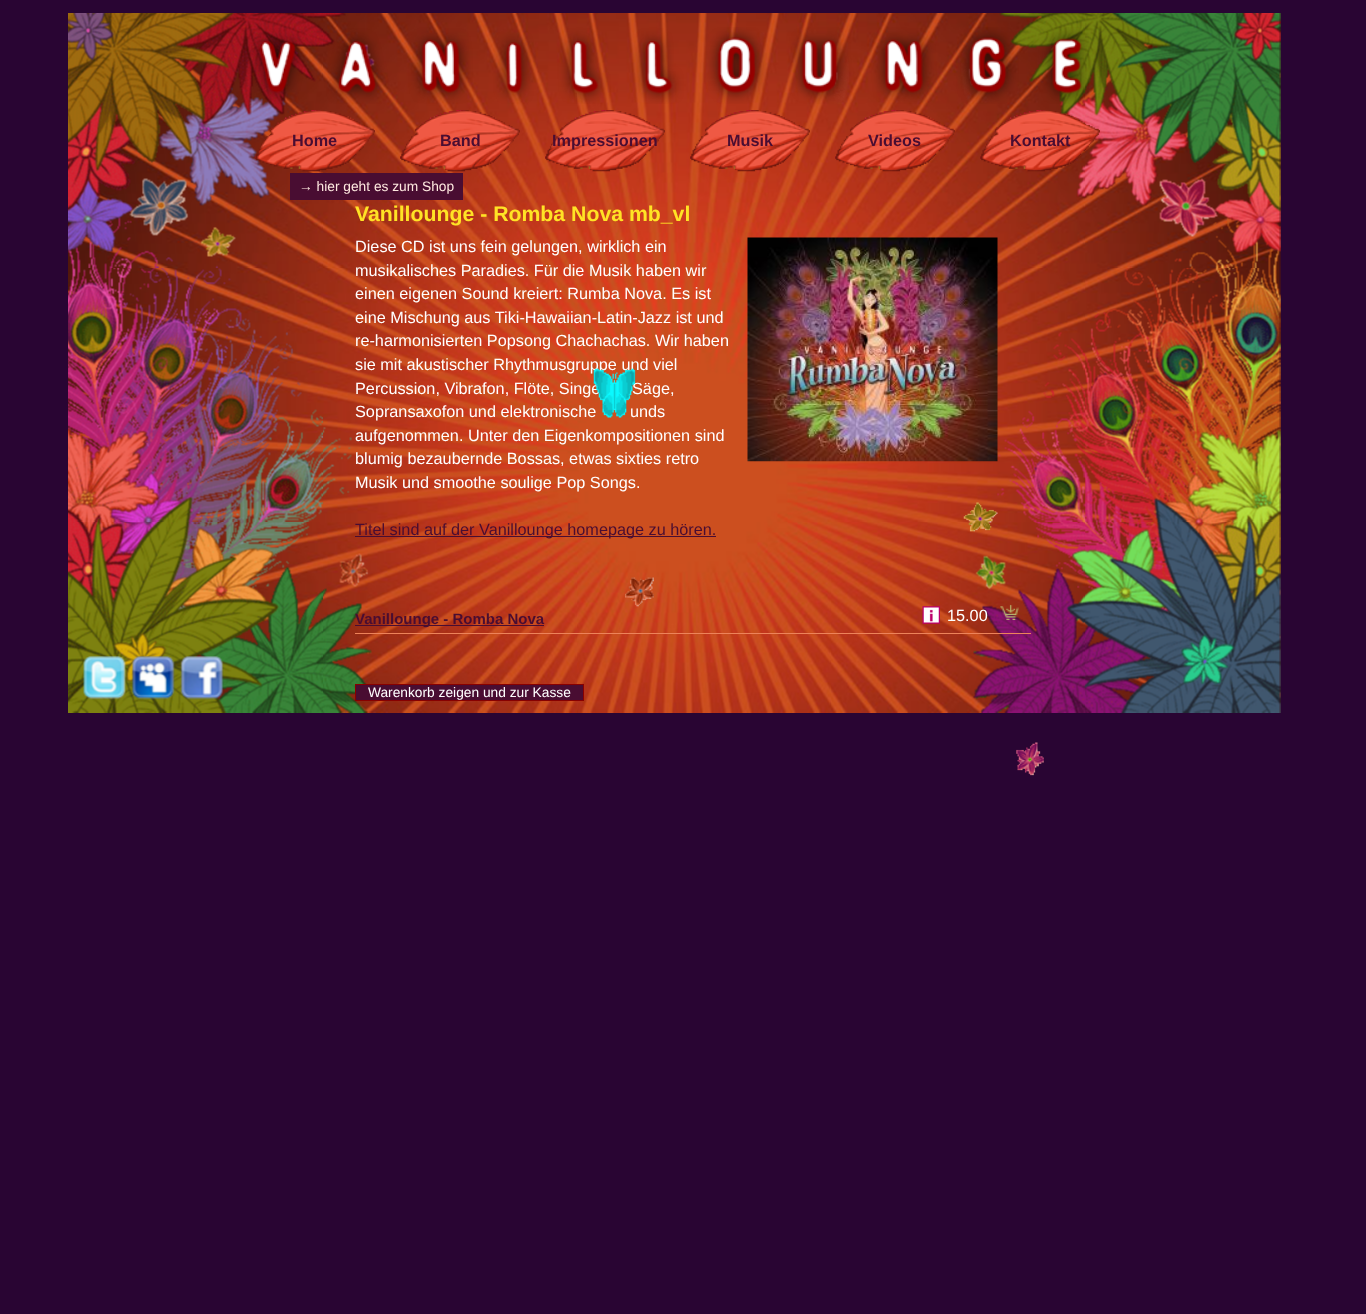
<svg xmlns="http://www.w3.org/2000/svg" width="1366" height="1314">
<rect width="100%" height="100%" fill="#290533"/>
<image x="68" y="13" width="1213" height="700" href="media/1.png"/>
<image x="68" y="13" width="307" height="700" href="media/2.png"/>
<image x="973" y="13" width="308" height="700" href="media/4.png"/>
<image x="249" y="27" width="840" height="77" href="media/3.png"/>
<image x="255" y="110" width="120" height="62" href="media/5.png"/>
<text x="292" y="146" style="font-family:Liberation Sans;font-size:16.25px;font-weight:bold;fill:#490d32">Home</text>
<image x="690" y="110" width="120" height="62" href="media/6.png"/>
<text x="727" y="146" style="font-family:Liberation Sans;font-size:16.25px;font-weight:bold;fill:#490d32">Musik</text>
<rect x="290" y="173" width="173" height="27" fill="#490d32"/>
<text x="299" y="191" style="font-family:Liberation Sans;font-size:13.75px;fill:#ffe9e0">→ hier geht es zum Shop</text>
<image x="400" y="110" width="120" height="62" href="media/7.png"/>
<text x="440" y="146" style="font-family:Liberation Sans;font-size:16.25px;font-weight:bold;fill:#490d32">Band</text>
<image x="545" y="110" width="120" height="62" href="media/8.png"/>
<text x="552" y="146" style="font-family:Liberation Sans;font-size:16.25px;font-weight:bold;fill:#490d32">Impressionen</text>
<image x="835" y="110" width="120" height="62" href="media/9.png"/>
<text x="868" y="146" style="font-family:Liberation Sans;font-size:16.25px;font-weight:bold;fill:#490d32">Videos</text>
<image x="980" y="110" width="120" height="62" href="media/10.png"/>
<text x="1010" y="146" style="font-family:Liberation Sans;font-size:16.25px;font-weight:bold;fill:#490d32">Kontakt</text>
<image x="83" y="656" width="43" height="44" href="media/11.png"/>
<image x="131" y="656" width="44" height="44" href="media/12.png"/>
<image x="180" y="656" width="44" height="44" href="media/13.png"/>
<text x="355" y="221" style="font-family:Liberation Sans;font-size:21.25px;font-weight:bold;fill:#ffe325">Vanillounge - Romba Nova mb_vl</text>
<text x="355" y="252" style="font-family:Liberation Sans;font-size:16.25px;fill:#fff">Diese CD ist uns fein gelungen, wirklich ein</text>
<text x="355" y="276" style="font-family:Liberation Sans;font-size:16.25px;fill:#fff">musikalisches Paradies. Für die Musik haben wir</text>
<text x="355" y="299" style="font-family:Liberation Sans;font-size:16.25px;fill:#fff">einen eigenen Sound kreiert: Rumba Nova. Es ist</text>
<text x="355" y="323" style="font-family:Liberation Sans;font-size:16.25px;fill:#fff">eine Mischung aus Tiki-Hawaiian-Latin-Jazz ist und</text>
<text x="355" y="346" style="font-family:Liberation Sans;font-size:16.25px;fill:#fff">re-harmonisierten Popsong Chachachas. Wir haben</text>
<text x="355" y="370" style="font-family:Liberation Sans;font-size:16.25px;fill:#fff">sie mit akustischer Rhythmusgruppe und viel</text>
<text x="355" y="394" style="font-family:Liberation Sans;font-size:16.25px;fill:#fff">Percussion, Vibrafon, Flöte, Singe</text>
<text x="632" y="394" style="font-family:Liberation Sans;font-size:16.25px;fill:#fff">Säge,</text>
<text x="355" y="417" style="font-family:Liberation Sans;font-size:16.25px;fill:#fff">Sopransaxofon und elektronische</text>
<text x="630" y="417" style="font-family:Liberation Sans;font-size:16.25px;fill:#fff">unds</text>
<text x="355" y="441" style="font-family:Liberation Sans;font-size:16.25px;fill:#fff">aufgenommen. Unter den Eigenkompositionen sind</text>
<text x="355" y="464" style="font-family:Liberation Sans;font-size:16.25px;fill:#fff">blumig bezaubernde Bossas, etwas sixties retro</text>
<text x="355" y="488" style="font-family:Liberation Sans;font-size:16.25px;fill:#fff">Musik und smoothe soulige Pop Songs.</text>
<rect x="355" y="536" width="361" height="1" fill="#490d32"/>
<text x="355" y="535" style="font-family:Liberation Sans;font-size:16.25px;fill:#490d32">Titel sind auf der Vanillounge homepage zu hören.</text>
<image x="747" y="237" width="251" height="225" href="media/14.png"/>
<rect x="355" y="633" width="676" height="1" fill="#ed835a"/>
<rect x="355" y="625" width="189" height="1" fill="#490d32"/>
<text x="355" y="624" style="font-family:Liberation Sans;font-size:15px;font-weight:bold;fill:#490d32">Vanillounge - Romba Nova</text>
<image x="922" y="606" width="18" height="18" href="media/15.png"/>
<text x="947" y="621" style="font-family:Liberation Sans;font-size:16.25px;fill:#fff">15.00</text>
<image x="1000" y="604" width="19" height="16" href="media/16.png"/>
<rect x="355.5" y="684.5" width="228" height="16" fill="#490d32" stroke="#800"/>
<text x="368" y="697" style="font-family:Liberation Sans;font-size:13.75px;fill:#fff">Warenkorb zeigen und zur Kasse</text>
<image x="593" y="368" width="43" height="50" href="media/17.png"/>
<image x="963" y="502" width="35" height="30" href="media/18.png"/>
<image x="625" y="577" width="29" height="30" href="media/19.png"/>
<image x="1016" y="742" width="28" height="34" href="media/20.png"/>
</svg>
